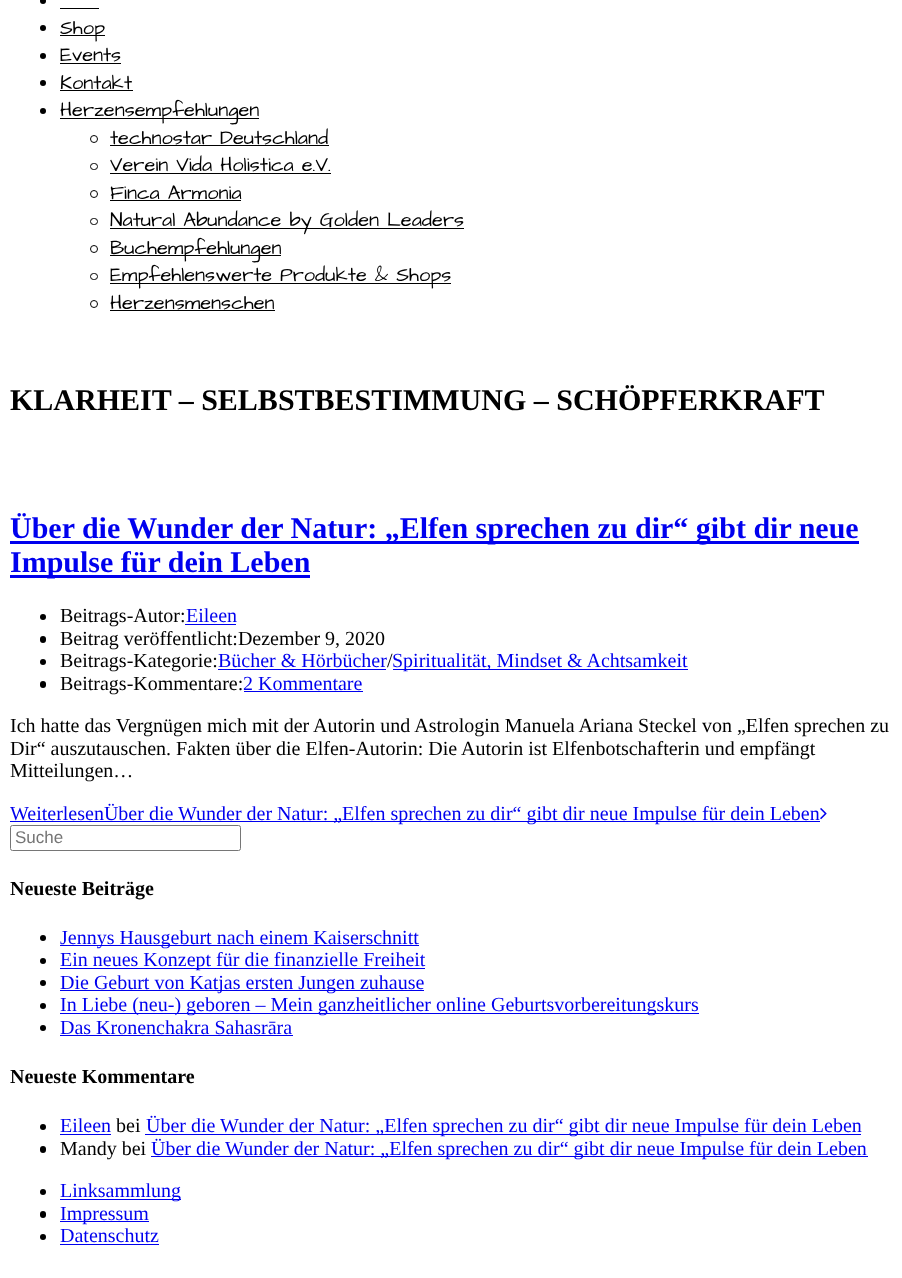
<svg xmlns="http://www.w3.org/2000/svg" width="902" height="1278">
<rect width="100%" height="100%" fill="#fff"/>
<circle cx="43" cy="1" r="3" fill="#000"/>
<rect x="60" y="8" width="39" height="1" fill="#000"/>
<circle cx="43" cy="28" r="3" fill="#000"/>
<rect x="60" y="35" width="45" height="1" fill="#000"/>
<text x="60" y="34" style="font-family:Architects Daughter;font-size:20px;fill:#000">Shop</text>
<circle cx="43" cy="56" r="3" fill="#000"/>
<text x="60" y="61" style="font-family:Architects Daughter;font-size:20px;fill:#000">Events</text>
<rect x="60" y="63" width="61" height="1" fill="#000"/>
<circle cx="43" cy="83" r="3" fill="#000"/>
<text x="60" y="89" style="font-family:Architects Daughter;font-size:20px;fill:#000">Kontakt</text>
<rect x="60" y="90" width="73" height="1" fill="#000"/>
<circle cx="43" cy="111" r="3" fill="#000"/>
<rect x="60" y="118" width="199" height="1" fill="#000"/>
<text x="60" y="116" style="font-family:Architects Daughter;font-size:20px;fill:#000">Herzensempfehlungen</text>
<circle cx="94" cy="139" r="3.5" fill="none" stroke="#000"/>
<text x="110" y="144" style="font-family:Architects Daughter;font-size:20px;fill:#000">technostar Deutschland</text>
<rect x="110" y="145" width="219" height="1" fill="#000"/>
<rect x="90.5" y="163.5" width="7" height="6" rx="3" fill="none" stroke="#000"/>
<text x="110" y="171" style="font-family:Architects Daughter;font-size:20px;fill:#000">Verein Vida Holistica e.V.</text>
<rect x="110" y="173" width="221" height="1" fill="#000"/>
<circle cx="94" cy="194" r="3.5" fill="none" stroke="#000"/>
<text x="110" y="199" style="font-family:Architects Daughter;font-size:20px;fill:#000">Finca Armonia</text>
<rect x="110" y="200" width="131" height="1" fill="#000"/>
<rect x="90.5" y="218.5" width="7" height="6" rx="3" fill="none" stroke="#000"/>
<rect x="110" y="228" width="354" height="1" fill="#000"/>
<text x="110" y="226" style="font-family:Architects Daughter;font-size:20px;fill:#000">Natural Abundance by Golden Leaders</text>
<circle cx="94" cy="249" r="3.5" fill="none" stroke="#000"/>
<rect x="110" y="255" width="171" height="1" fill="#000"/>
<text x="110" y="254" style="font-family:Architects Daughter;font-size:20px;fill:#000">Buchempfehlungen</text>
<rect x="90.5" y="273.5" width="7" height="6" rx="3" fill="none" stroke="#000"/>
<rect x="110" y="283" width="341" height="1" fill="#000"/>
<text x="110" y="281" style="font-family:Architects Daughter;font-size:20px;fill:#000">Empfehlenswerte Produkte &amp; Shops</text>
<circle cx="94" cy="304" r="3.5" fill="none" stroke="#000"/>
<text x="110" y="309" style="font-family:Architects Daughter;font-size:20px;fill:#000">Herzensmenschen</text>
<rect x="110" y="310" width="165" height="1" fill="#000"/>
<text x="10" y="410" style="font-family:Liberation Serif;font-size:30px;font-weight:bold;fill:#000">KLARHEIT – SELBSTBESTIMMUNG – SCHÖPFERKRAFT</text>
<rect x="10" y="541" width="849" height="3" fill="#00e"/>
<text x="10" y="538" style="font-family:Liberation Serif;font-size:30px;font-weight:bold;fill:#00e">Über die Wunder der Natur: „Elfen sprechen zu dir“ gibt dir neue</text>
<rect x="10" y="575" width="300" height="3" fill="#00e"/>
<text x="10" y="572" style="font-family:Liberation Serif;font-size:30px;font-weight:bold;fill:#00e">Impulse für dein Leben</text>
<circle cx="43" cy="617" r="3" fill="#000"/>
<text x="60" y="622" style="font-family:Liberation Serif;font-size:20px;fill:#000">Beitrags-Autor:</text>
<text x="186" y="622" style="font-family:Liberation Serif;font-size:20px;fill:#00e">Eileen</text>
<rect x="185" y="624" width="51" height="1" fill="#00e"/>
<rect x="40" y="636" width="6" height="7" rx="3" fill="#000"/>
<text x="60" y="645" style="font-family:Liberation Serif;font-size:20px;fill:#000">Beitrag veröffentlicht:Dezember 9, 2020</text>
<circle cx="43" cy="662" r="3" fill="#000"/>
<text x="60" y="667" style="font-family:Liberation Serif;font-size:20px;fill:#000">Beitrags-Kategorie:</text>
<text x="218" y="667" style="font-family:Liberation Serif;font-size:20px;fill:#00e">Bücher &amp; Hörbücher</text>
<rect x="218" y="669" width="168" height="1" fill="#00e"/>
<text x="387" y="667" style="font-family:Liberation Serif;font-size:20px;fill:#000">/</text>
<rect x="393" y="669" width="295" height="1" fill="#00e"/>
<text x="392" y="667" style="font-family:Liberation Serif;font-size:20px;fill:#00e">Spiritualität, Mindset &amp; Achtsamkeit</text>
<rect x="40" y="681" width="6" height="7" rx="3" fill="#000"/>
<text x="60" y="690" style="font-family:Liberation Serif;font-size:20px;fill:#000">Beitrags-Kommentare:</text>
<text x="243" y="690" style="font-family:Liberation Serif;font-size:20px;fill:#00e">2 Kommentare</text>
<rect x="244" y="691" width="119" height="1" fill="#00e"/>
<text x="10" y="732" style="font-family:Liberation Serif;font-size:20px;fill:#000">Ich hatte das Vergnügen mich mit der Autorin und Astrologin Manuela Ariana Steckel von „Elfen sprechen zu</text>
<text x="10" y="755" style="font-family:Liberation Serif;font-size:20px;fill:#000">Dir“ auszutauschen. Fakten über die Elfen-Autorin: Die Autorin ist Elfenbotschafterin und empfängt</text>
<text x="10" y="777" style="font-family:Liberation Serif;font-size:20px;fill:#000">Mitteilungen…</text>
<rect x="10" y="821" width="810" height="1" fill="#00e"/>
<text x="10" y="820" style="font-family:Liberation Serif;font-size:20px;fill:#00e">WeiterlesenÜber die Wunder der Natur: „Elfen sprechen zu dir“ gibt dir neue Impulse für dein Leben</text>
<image x="820" y="808" width="7" height="12" href="media/1.png"/>
<rect x="10.5" y="825.5" width="230" height="25" rx="2" fill="none" stroke="#767676"/>
<text x="15" y="843" style="font-family:Liberation Sans;font-size:17px;fill:#757575">Suche</text>
<text x="10" y="895" style="font-family:Liberation Serif;font-size:20px;font-weight:bold;fill:#000">Neueste Beiträge</text>
<circle cx="43" cy="938" r="3" fill="#000"/>
<rect x="60" y="945" width="359" height="1" fill="#00e"/>
<text x="60" y="944" style="font-family:Liberation Serif;font-size:20px;fill:#00e">Jennys Hausgeburt nach einem Kaiserschnitt</text>
<circle cx="43" cy="961" r="3" fill="#000"/>
<rect x="60" y="968" width="365" height="1" fill="#00e"/>
<text x="60" y="966" style="font-family:Liberation Serif;font-size:20px;fill:#00e">Ein neues Konzept für die finanzielle Freiheit</text>
<circle cx="43" cy="983" r="3" fill="#000"/>
<rect x="60" y="990" width="364" height="1" fill="#00e"/>
<text x="60" y="989" style="font-family:Liberation Serif;font-size:20px;fill:#00e">Die Geburt von Katjas ersten Jungen zuhause</text>
<circle cx="43" cy="1006" r="3" fill="#000"/>
<rect x="60" y="1013" width="639" height="1" fill="#00e"/>
<text x="60" y="1011" style="font-family:Liberation Serif;font-size:20px;fill:#00e">In Liebe (neu-) geboren – Mein ganzheitlicher online Geburtsvorbereitungskurs</text>
<circle cx="43" cy="1028" r="3" fill="#000"/>
<text x="60" y="1034" style="font-family:Liberation Serif;font-size:20px;fill:#00e">Das Kronenchakra Sahasrāra</text>
<rect x="60" y="1035" width="233" height="1" fill="#00e"/>
<text x="10" y="1083" style="font-family:Liberation Serif;font-size:20px;font-weight:bold;fill:#000">Neueste Kommentare</text>
<circle cx="43" cy="1127" r="3" fill="#000"/>
<text x="60" y="1132" style="font-family:Liberation Serif;font-size:20px;fill:#00e">Eileen</text>
<rect x="60" y="1134" width="51" height="1" fill="#00e"/>
<text x="116" y="1132" style="font-family:Liberation Serif;font-size:20px;fill:#000">bei</text>
<rect x="145" y="1134" width="716" height="1" fill="#00e"/>
<text x="146" y="1132" style="font-family:Liberation Serif;font-size:20px;fill:#00e">Über die Wunder der Natur: „Elfen sprechen zu dir“ gibt dir neue Impulse für dein Leben</text>
<rect x="40" y="1146" width="6" height="7" rx="3" fill="#000"/>
<text x="60" y="1155" style="font-family:Liberation Serif;font-size:20px;fill:#000">Mandy bei</text>
<rect x="151" y="1156" width="717" height="1" fill="#00e"/>
<text x="151" y="1155" style="font-family:Liberation Serif;font-size:20px;fill:#00e">Über die Wunder der Natur: „Elfen sprechen zu dir“ gibt dir neue Impulse für dein Leben</text>
<circle cx="43" cy="1192" r="3" fill="#000"/>
<rect x="60" y="1199" width="121" height="1" fill="#00e"/>
<text x="60" y="1197" style="font-family:Liberation Serif;font-size:20px;fill:#00e">Linksammlung</text>
<rect x="40" y="1211" width="6" height="7" rx="3" fill="#000"/>
<rect x="60" y="1221" width="89" height="1" fill="#00e"/>
<text x="60" y="1220" style="font-family:Liberation Serif;font-size:20px;fill:#00e">Impressum</text>
<circle cx="43" cy="1237" r="3" fill="#000"/>
<text x="60" y="1242" style="font-family:Liberation Serif;font-size:20px;fill:#00e">Datenschutz</text>
<rect x="60" y="1244" width="99" height="1" fill="#00e"/>
</svg>
